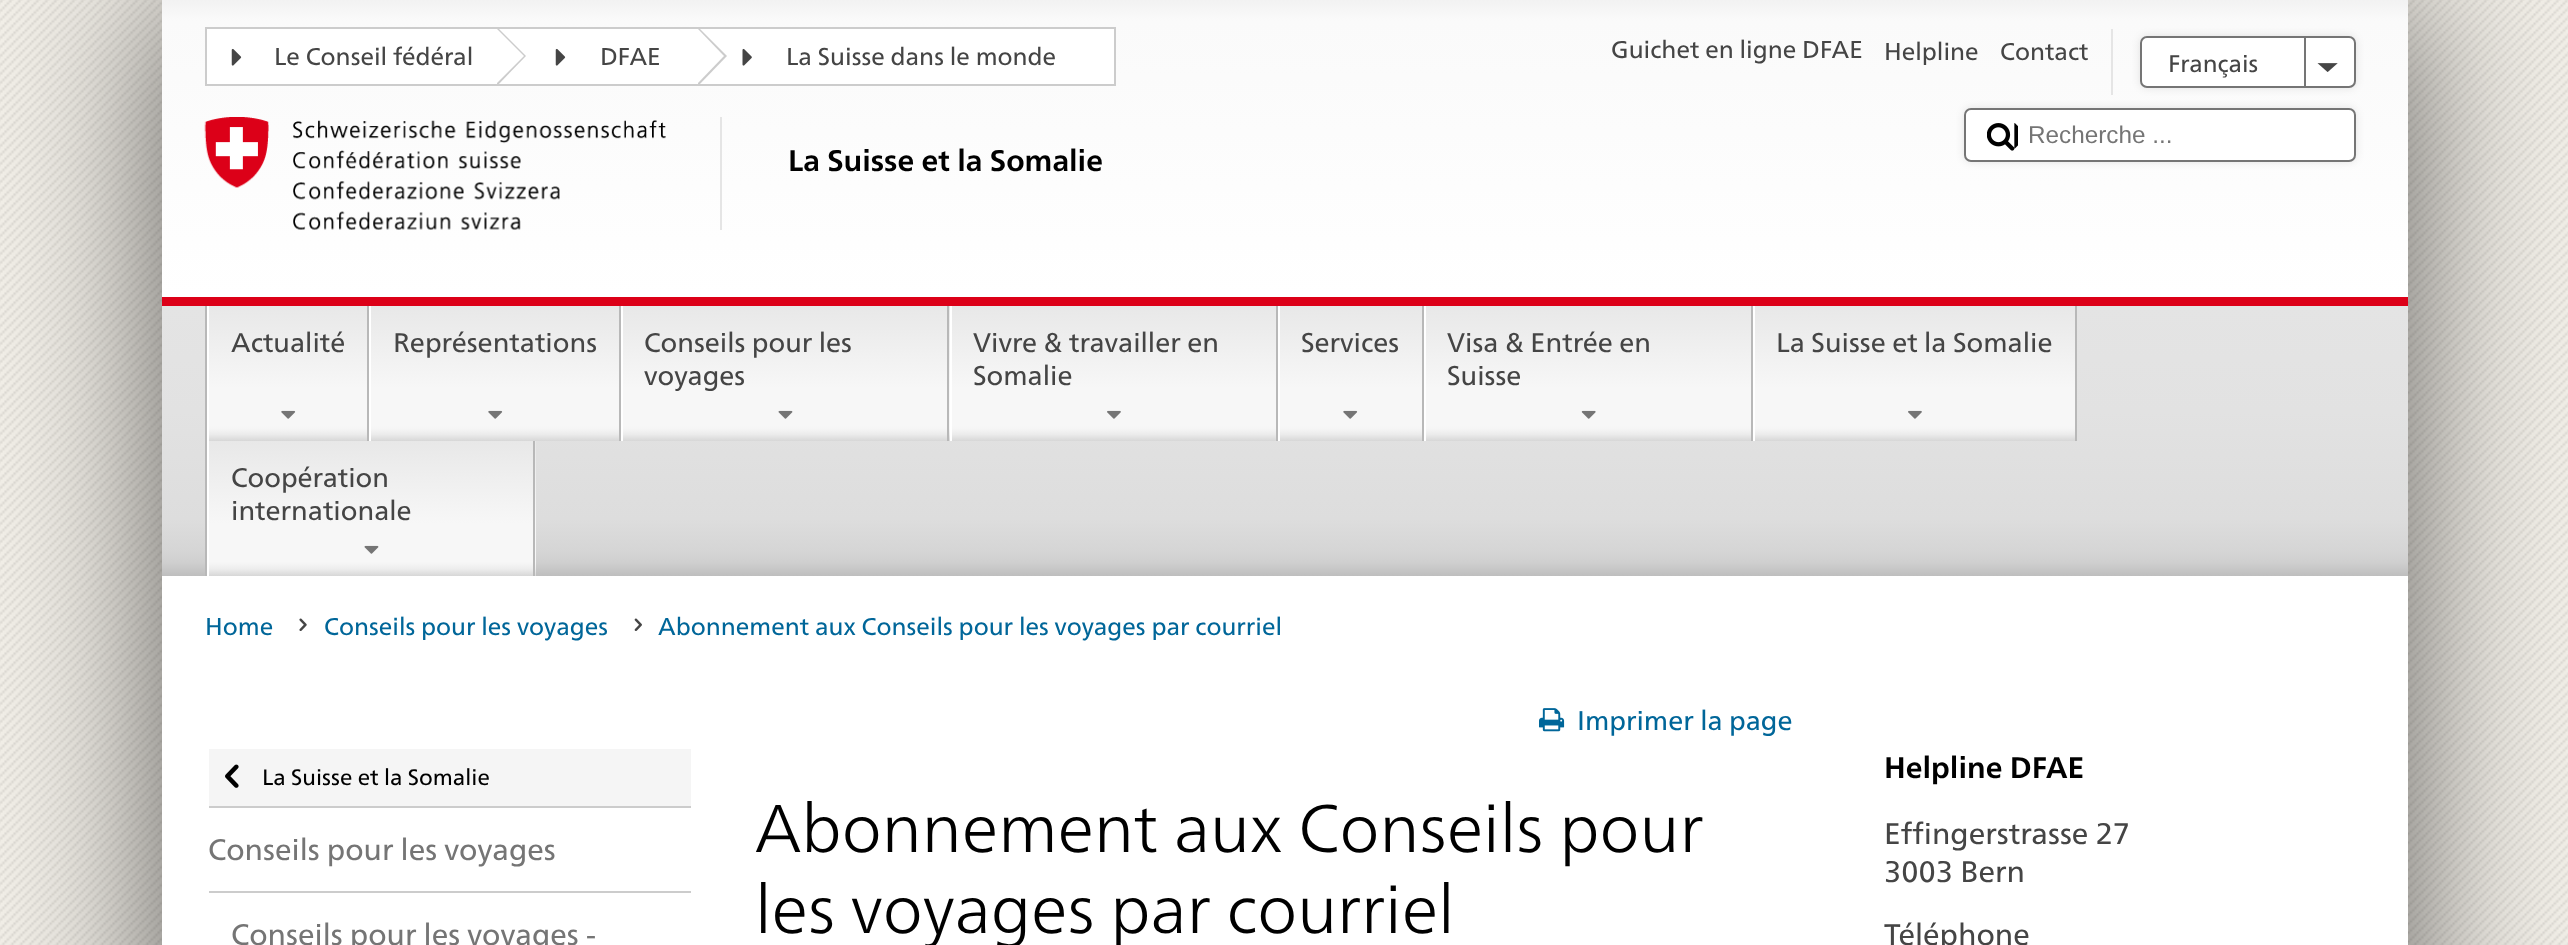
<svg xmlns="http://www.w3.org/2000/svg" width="2568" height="945">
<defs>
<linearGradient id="g1" gradientUnits="userSpaceOnUse" x1="1285" y1="0" x2="1285" y2="297"><stop offset="0" stop-color="#f2f2f2"/><stop offset="0.07" stop-color="#fafafa"/><stop offset="1" stop-color="#fff"/></linearGradient>
<linearGradient id="g2" gradientUnits="userSpaceOnUse" x1="1285" y1="306" x2="1285" y2="576"><stop offset="0" stop-color="#e4e4e4"/><stop offset="0.39" stop-color="#e2e2e2"/><stop offset="0.79" stop-color="#ddd"/><stop offset="0.91" stop-color="#d5d5d5"/><stop offset="0.95" stop-color="#cfcfcf"/><stop offset="1" stop-color="#bebebe"/></linearGradient>
<linearGradient id="g3" gradientUnits="userSpaceOnUse" x1="288" y1="306" x2="288" y2="441"><stop offset="0" stop-color="#e8e8e8"/><stop offset="0.61" stop-color="#f7f7f7"/><stop offset="0.89" stop-color="#f7f7f7"/><stop offset="0.91" stop-color="#f5f5f5"/><stop offset="0.95" stop-color="#ececec"/><stop offset="1" stop-color="#d7d7d7"/></linearGradient>
<linearGradient id="g4" gradientUnits="userSpaceOnUse" x1="495" y1="306" x2="495" y2="441"><stop offset="0" stop-color="#e8e8e8"/><stop offset="0.61" stop-color="#f7f7f7"/><stop offset="0.89" stop-color="#f7f7f7"/><stop offset="0.91" stop-color="#f5f5f5"/><stop offset="0.95" stop-color="#ececec"/><stop offset="1" stop-color="#d7d7d7"/></linearGradient>
<linearGradient id="g5" gradientUnits="userSpaceOnUse" x1="785" y1="306" x2="785" y2="441"><stop offset="0" stop-color="#e8e8e8"/><stop offset="0.61" stop-color="#f7f7f7"/><stop offset="0.89" stop-color="#f7f7f7"/><stop offset="0.91" stop-color="#f5f5f5"/><stop offset="0.95" stop-color="#ececec"/><stop offset="1" stop-color="#d7d7d7"/></linearGradient>
<linearGradient id="g6" gradientUnits="userSpaceOnUse" x1="1114" y1="306" x2="1114" y2="441"><stop offset="0" stop-color="#e8e8e8"/><stop offset="0.61" stop-color="#f7f7f7"/><stop offset="0.89" stop-color="#f7f7f7"/><stop offset="0.91" stop-color="#f5f5f5"/><stop offset="0.95" stop-color="#ececec"/><stop offset="1" stop-color="#d7d7d7"/></linearGradient>
<linearGradient id="g7" gradientUnits="userSpaceOnUse" x1="1351" y1="306" x2="1351" y2="441"><stop offset="0" stop-color="#e8e8e8"/><stop offset="0.61" stop-color="#f7f7f7"/><stop offset="0.89" stop-color="#f7f7f7"/><stop offset="0.91" stop-color="#f5f5f5"/><stop offset="0.95" stop-color="#ececec"/><stop offset="1" stop-color="#d7d7d7"/></linearGradient>
<linearGradient id="g8" gradientUnits="userSpaceOnUse" x1="1589" y1="306" x2="1589" y2="441"><stop offset="0" stop-color="#e8e8e8"/><stop offset="0.61" stop-color="#f7f7f7"/><stop offset="0.89" stop-color="#f7f7f7"/><stop offset="0.91" stop-color="#f5f5f5"/><stop offset="0.95" stop-color="#ececec"/><stop offset="1" stop-color="#d7d7d7"/></linearGradient>
<linearGradient id="g9" gradientUnits="userSpaceOnUse" x1="1915" y1="306" x2="1915" y2="441"><stop offset="0" stop-color="#e8e8e8"/><stop offset="0.61" stop-color="#f7f7f7"/><stop offset="0.89" stop-color="#f7f7f7"/><stop offset="0.91" stop-color="#f5f5f5"/><stop offset="0.95" stop-color="#ececec"/><stop offset="1" stop-color="#d7d7d7"/></linearGradient>
<linearGradient id="g10" gradientUnits="userSpaceOnUse" x1="371" y1="441" x2="371" y2="576"><stop offset="0" stop-color="#e8e8e8"/><stop offset="0.61" stop-color="#f7f7f7"/><stop offset="0.89" stop-color="#f7f7f7"/><stop offset="0.91" stop-color="#f5f5f5"/><stop offset="0.95" stop-color="#ececec"/><stop offset="1" stop-color="#d7d7d7"/></linearGradient>
</defs>
<rect width="100%" height="100%" fill="#fff"/>
<image x="0" y="0" width="2568" height="945" href="media/1.png"/>
<rect x="162" width="2246" height="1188" fill="#00000099" filter="blur(81px)"/>
<rect x="162" y="576" width="2246" height="369" fill="#fff"/>
<rect x="162" width="2246" height="297" fill="url(#g1)"/>
<rect x="206" y="28" width="909" height="57" fill="#fff" stroke="#ccc" stroke-width="2"/>
<path d="M497 86v-59l29 29z" fill="#ccc"/>
<image x="231" y="48" width="11" height="18" href="media/2.png"/>
<text x="274" y="65" style="font-family:'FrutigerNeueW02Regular';font-size:24.3px;fill:#454545">Le Conseil fédéral</text>
<path d="M497 83v-54l27 27z" fill="#fff"/>
<path d="M698 86v-59l29 29z" fill="#ccc"/>
<image x="555" y="48" width="11" height="18" href="media/2.png"/>
<text x="600" y="65" style="font-family:'FrutigerNeueW02Regular';font-size:24.3px;fill:#454545">DFAE</text>
<path d="M698 83v-54l26 27z" fill="#fff"/>
<image x="742" y="48" width="10" height="18" href="media/3.png"/>
<text x="786" y="65" style="font-family:'FrutigerNeueW02Regular';font-size:24.3px;fill:#454545">La Suisse dans le monde</text>
<text x="1611" y="58" style="font-family:'FrutigerNeueW02Regular';font-size:24.3px;fill:#454545">Guichet en ligne DFAE</text>
<text x="1884" y="60" style="font-family:'FrutigerNeueW02Regular';font-size:24.3px;fill:#454545">Helpline</text>
<text x="2000" y="60" style="font-family:'FrutigerNeueW02Regular';font-size:24.3px;fill:#454545">Contact</text>
<rect x="1964" y="108" width="392" height="54" rx="7" fill="#0000001a" filter="blur(4.5px)"/>
<rect x="2111" y="29" width="2" height="66" fill="#e5e5e5"/>
<rect x="2140" y="36" width="216" height="52" rx="7" fill="#0000001a" filter="blur(4.5px)"/>
<rect x="2141" y="37" width="214" height="50" rx="6" fill="#fff" stroke="#757575" stroke-width="2"/>
<text x="2168" y="72" style="font-family:'FrutigerNeueW02Regular';font-size:24px;fill:#454545">Français</text>
<image x="2317" y="63" width="21" height="9" href="media/4.png"/>
<rect x="2304" y="36" width="2" height="52" fill="#757575"/>
<rect x="1965" y="109" width="390" height="52" rx="6" fill="#fff" stroke="#757575" stroke-width="2"/>
<image x="1987" y="123" width="31" height="28" href="media/5.png"/>
<text x="2028" y="143" style="font-family:Liberation Sans;font-size:24.3px;fill:#757575">Recherche ...</text>
<image x="204" y="117" width="462" height="113" href="media/6.png"/>
<rect x="720" y="117" width="2" height="113" fill="#e5e5e5"/>
<text x="788" y="171" style="font-family:'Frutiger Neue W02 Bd';font-size:29.75px;font-weight:bold;fill:#000">La Suisse et la Somalie</text>
<rect x="162" y="306" width="2246" height="270" fill="url(#g2)"/>
<rect x="162" y="297" width="2246" height="9" fill="#dc0018"/>
<rect x="205" y="306" width="2" height="270" fill="#b8b8b8"/>
<rect x="209" y="306" width="158" height="135" fill="url(#g3)"/>
<rect x="367" y="306" width="2" height="135" fill="#b8b8b8"/>
<rect x="207" y="306" width="2" height="270" fill="#fff"/>
<text x="231" y="352" style="font-family:'FrutigerNeueW02Regular';font-size:27px;fill:#454545">Actualité</text>
<image x="281" y="410" width="15" height="9" href="media/7.png"/>
<rect x="371" y="306" width="248" height="135" fill="url(#g4)"/>
<rect x="619" y="306" width="2" height="135" fill="#b8b8b8"/>
<rect x="369" y="306" width="2" height="135" fill="#fff"/>
<text x="393" y="352" style="font-family:'FrutigerNeueW02Regular';font-size:27px;fill:#454545">Représentations</text>
<image x="488" y="410" width="15" height="9" href="media/7.png"/>
<rect x="623" y="306" width="327" height="135" fill="url(#g5)"/>
<rect x="947" y="306" width="2" height="135" fill="#b8b8b8"/>
<rect x="621" y="306" width="2" height="135" fill="#fff"/>
<text x="644" y="352" style="font-family:'FrutigerNeueW02Regular';font-size:27px;fill:#454545">Conseils pour les</text>
<text x="644" y="385" style="font-family:'FrutigerNeueW02Regular';font-size:27px;fill:#454545">voyages</text>
<image x="778" y="410" width="15" height="9" href="media/8.png"/>
<rect x="952" y="306" width="324" height="135" fill="url(#g6)"/>
<rect x="1276" y="306" width="2" height="135" fill="#b8b8b8"/>
<rect x="950" y="306" width="2" height="135" fill="#fff"/>
<text x="973" y="352" style="font-family:'FrutigerNeueW02Regular';font-size:27px;fill:#454545">Vivre &amp; travailler en</text>
<text x="973" y="385" style="font-family:'FrutigerNeueW02Regular';font-size:27px;fill:#454545">Somalie</text>
<image x="1107" y="410" width="14" height="9" href="media/9.png"/>
<rect x="1280" y="306" width="142" height="135" fill="url(#g7)"/>
<rect x="1422" y="306" width="2" height="135" fill="#b8b8b8"/>
<rect x="1278" y="306" width="2" height="135" fill="#fff"/>
<text x="1301" y="352" style="font-family:'FrutigerNeueW02Regular';font-size:27px;fill:#454545">Services</text>
<image x="1343" y="410" width="15" height="9" href="media/7.png"/>
<rect x="1426" y="306" width="325" height="135" fill="url(#g8)"/>
<rect x="1751" y="306" width="2" height="135" fill="#b8b8b8"/>
<rect x="1424" y="306" width="2" height="135" fill="#fff"/>
<text x="1447" y="352" style="font-family:'FrutigerNeueW02Regular';font-size:27px;fill:#454545">Visa &amp; Entrée en</text>
<text x="1447" y="385" style="font-family:'FrutigerNeueW02Regular';font-size:27px;fill:#454545">Suisse</text>
<image x="1581" y="410" width="15" height="9" href="media/10.png"/>
<rect x="1755" y="306" width="320" height="135" fill="url(#g9)"/>
<rect x="2075" y="306" width="2" height="135" fill="#b8b8b8"/>
<rect x="1753" y="306" width="2" height="135" fill="#fff"/>
<text x="1776" y="352" style="font-family:'FrutigerNeueW02Regular';font-size:27px;fill:#454545">La Suisse et la Somalie</text>
<image x="1908" y="410" width="14" height="9" href="media/9.png"/>
<rect x="209" y="441" width="327" height="135" fill="url(#g10)"/>
<rect x="533" y="441" width="2" height="135" fill="#b8b8b8"/>
<text x="231" y="487" style="font-family:'FrutigerNeueW02Regular';font-size:27px;fill:#454545">Coopération</text>
<text x="231" y="520" style="font-family:'FrutigerNeueW02Regular';font-size:27px;fill:#454545">internationale</text>
<image x="364" y="545" width="15" height="9" href="media/8.png"/>
<text x="205" y="635" style="font-family:'FrutigerNeueW02Regular';font-size:24.3px;fill:#069">Home</text>
<image x="299" y="618" width="8" height="13" href="media/11.png"/>
<text x="324" y="635" style="font-family:'FrutigerNeueW02Regular';font-size:24.3px;fill:#069">Conseils pour les voyages</text>
<image x="634" y="618" width="8" height="13" href="media/12.png"/>
<text x="658" y="635" style="font-family:'FrutigerNeueW02Regular';font-size:24.3px;fill:#069">Abonnement aux Conseils pour les voyages par courriel</text>
<rect x="209" y="749" width="482" height="57" fill="#f5f5f5"/>
<rect x="209" y="806" width="482" height="2" fill="#ccc"/>
<image x="225" y="764" width="14" height="24" href="media/13.png"/>
<text x="262" y="785" style="font-family:'FrutigerNeueW02Regular';font-size:22.25px;fill:#000">La Suisse et la Somalie</text>
<rect x="209" y="891" width="482" height="2" fill="#ccc"/>
<text x="208" y="860" style="font-family:'FrutigerNeueW02Regular';font-size:29.75px;fill:#757575">Conseils pour les voyages</text>
<text x="231" y="945" style="font-family:'FrutigerNeueW02Regular';font-size:29.75px;fill:#757575">Conseils pour les voyages -</text>
<image x="1539" y="708" width="26" height="24" href="media/14.png"/>
<text x="1577" y="730" style="font-family:'FrutigerNeueW02Regular';font-size:27px;fill:#069">Imprimer la page</text>
<text x="755" y="852" style="font-family:'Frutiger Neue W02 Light';font-size:67.5px;font-weight:300;fill:#000">Abonnement aux Conseils pour</text>
<text x="755" y="933" style="font-family:'Frutiger Neue W02 Light';font-size:67.5px;font-weight:300;fill:#000">les voyages par courriel</text>
<text x="1884" y="778" style="font-family:'Frutiger Neue W02 Bd';font-size:29.75px;font-weight:bold;fill:#000">Helpline DFAE</text>
<text x="1884" y="844" style="font-family:'FrutigerNeueW02Regular';font-size:29.75px;fill:#454545">Effingerstrasse 27</text>
<text x="1884" y="882" style="font-family:'FrutigerNeueW02Regular';font-size:29.75px;fill:#454545">3003 Bern</text>
<text x="1884" y="945" style="font-family:'FrutigerNeueW02Regular';font-size:29.75px;fill:#454545">Téléphone</text>
</svg>
